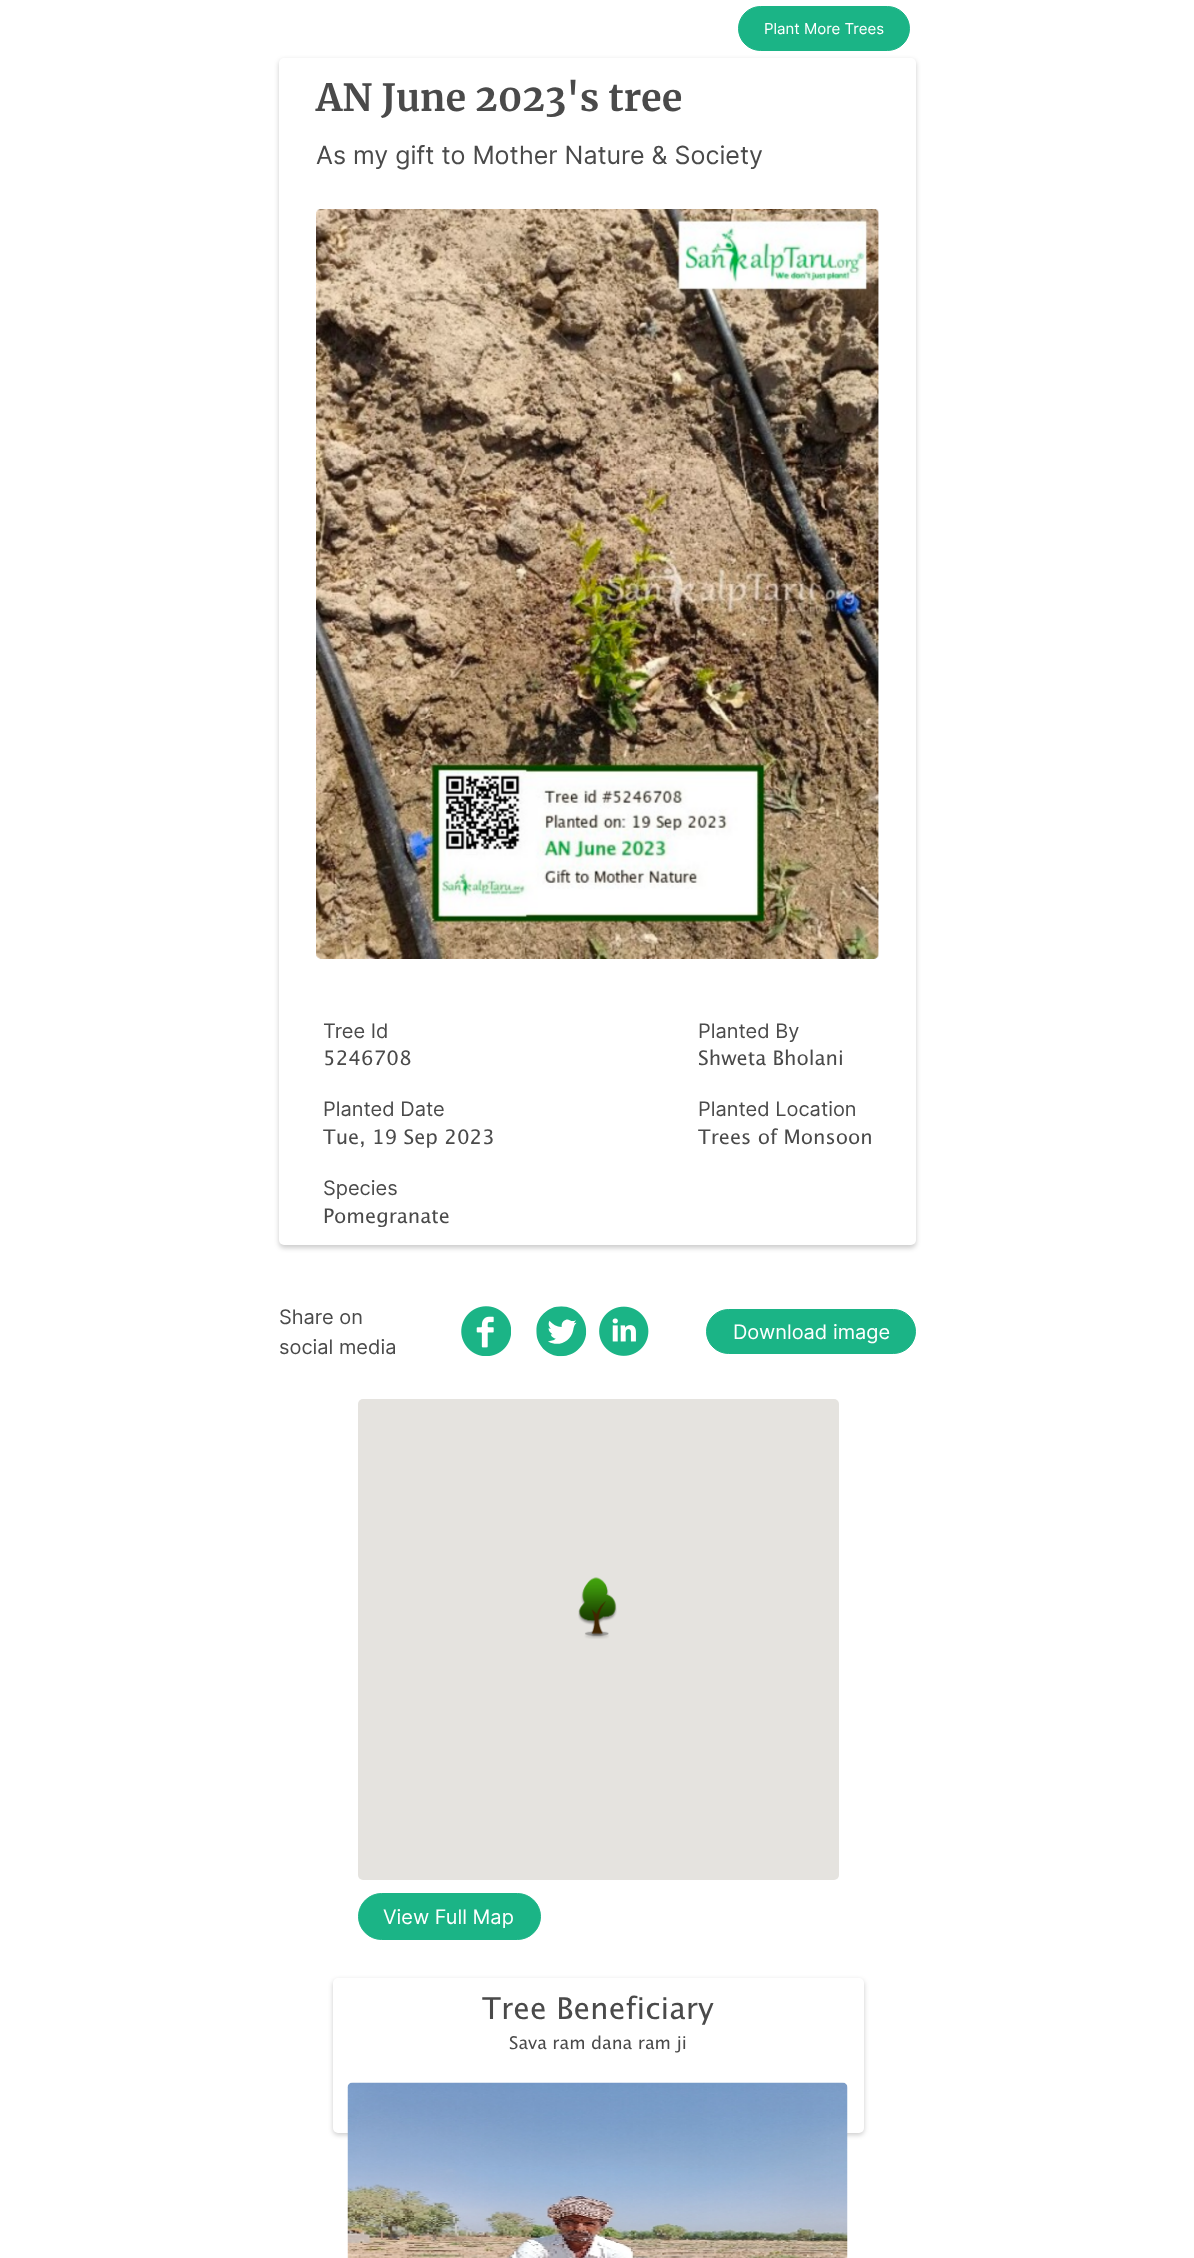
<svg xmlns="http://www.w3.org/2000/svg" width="1194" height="2258">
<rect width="100%" height="100%" fill="#fff"/>
<rect x="738.5" y="6.5" width="171" height="44" rx="22" fill="#1bb486" stroke="#1bb486"/>
<text x="764" y="34" style="font-family:Inter;font-size:15px;fill:#fff">Plant More Trees</text>
<rect x="279" y="60" width="637" height="1188" rx="5" fill="#00000033" filter="blur(2.5px)"/>
<rect x="279" y="58" width="637" height="1187" rx="5" fill="#fff"/>
<text x="316" y="111" style="font-family:Merriweather;font-size:37.5px;font-weight:bold;fill:#4a4a4a">AN June 2023's tree</text>
<text x="316" y="164" style="font-family:Inter;font-size:25px;fill:#4a4a4a">As my gift to Mother Nature &amp; Society</text>
<image x="316" y="209" width="563" height="750" href="media/1.png"/>
<text x="323" y="1038" style="font-family:Inter;font-size:20px;fill:#4a4a4a">Tree Id</text>
<text x="323" y="1065" style="font-family:Lucida Grande;font-size:20px;fill:#4a4a4a">5246708</text>
<text x="323" y="1116" style="font-family:Inter;font-size:20px;fill:#4a4a4a">Planted Date</text>
<text x="323" y="1144" style="font-family:Lucida Grande;font-size:20px;fill:#4a4a4a">Tue, 19 Sep 2023</text>
<text x="323" y="1195" style="font-family:Inter;font-size:20px;fill:#4a4a4a">Species</text>
<text x="323" y="1223" style="font-family:Lucida Grande;font-size:20px;fill:#4a4a4a">Pomegranate</text>
<text x="698" y="1038" style="font-family:Inter;font-size:20px;fill:#4a4a4a">Planted By</text>
<text x="698" y="1065" style="font-family:Lucida Grande;font-size:20px;fill:#4a4a4a">Shweta Bholani</text>
<text x="698" y="1116" style="font-family:Inter;font-size:20px;fill:#4a4a4a">Planted Location</text>
<text x="698" y="1144" style="font-family:Lucida Grande;font-size:20px;fill:#4a4a4a">Trees of Monsoon</text>
<text x="279" y="1324" style="font-family:Inter;font-size:20px;fill:#4a4a4a">Share on</text>
<text x="279" y="1354" style="font-family:Inter;font-size:20px;fill:#4a4a4a">social media</text>
<image x="461" y="1306" width="50" height="50" href="media/2.png"/>
<image x="536" y="1306" width="51" height="51" href="media/3.png"/>
<image x="599" y="1306" width="50" height="50" href="media/4.png"/>
<rect x="706.5" y="1309.5" width="209" height="44" rx="22" fill="#1bb486" stroke="#1bb486"/>
<text x="733" y="1339" style="font-family:Inter;font-size:20px;fill:#fff">Download image</text>
<rect x="358" y="1399" width="481" height="481" rx="5" fill="#e5e3df"/>
<image x="578" y="1577" width="39" height="62" href="media/5.png"/>
<rect x="358.5" y="1893.5" width="182" height="46" rx="23" fill="#1bb486" stroke="#1bb486"/>
<text x="383" y="1924" style="font-family:Inter;font-size:20px;fill:#fff">View Full Map</text>
<rect x="333" y="1980" width="531" height="155" rx="5" fill="#00000033" filter="blur(2.5px)"/>
<rect x="333" y="1978" width="531" height="155" rx="5" fill="#fff"/>
<text x="482" y="2019" style="font-family:Lucida Grande;font-size:30px;fill:#4a4a4a">Tree Beneficiary</text>
<text x="509" y="2049" style="font-family:Lucida Grande;font-size:17.5px;fill:#4a4a4a">Sava ram dana ram ji</text>
<image x="347" y="2082" width="501" height="176" href="media/6.png"/>
</svg>
